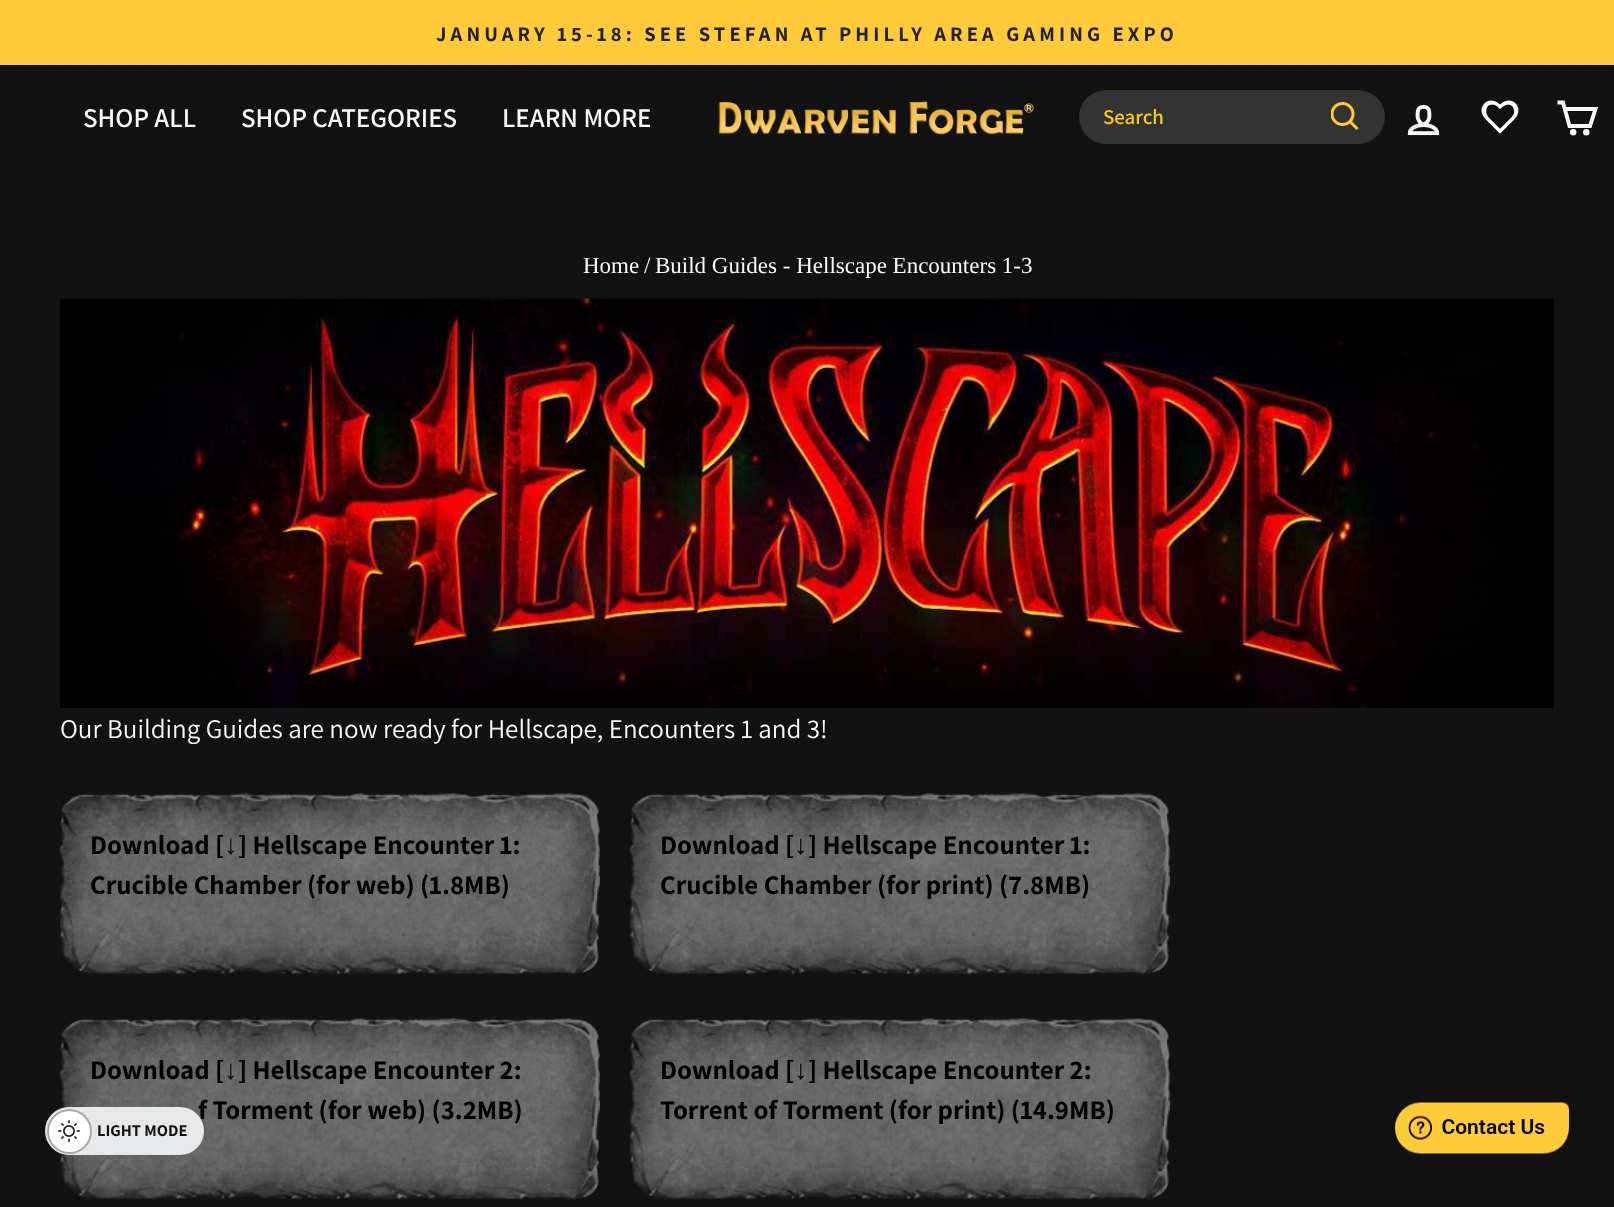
<svg xmlns="http://www.w3.org/2000/svg" width="1614" height="1207">
<rect width="100%" height="100%" fill="#121212"/>
<rect width="1614" height="65" fill="#ffcb3b"/>
<text x="436" y="41" style="font-family:Assistant;font-size:20.65px;font-weight:bold;letter-spacing:4.13px;fill:#212121">JANUARY 15-18: SEE STEFAN AT PHILLY AREA GAMING EXPO</text>
<text x="83" y="127" style="font-family:Assistant;font-size:27px;font-weight:600;fill:#fafafa">SHOP ALL</text>
<text x="241" y="127" style="font-family:Assistant;font-size:27px;font-weight:600;fill:#fafafa">SHOP CATEGORIES</text>
<text x="502" y="127" style="font-family:Assistant;font-size:27px;font-weight:600;fill:#fafafa">LEARN MORE</text>
<image x="718" y="101" width="316" height="34" href="media/1.png"/>
<rect x="1079" y="90" width="306" height="54" rx="27" fill="#333"/>
<text x="1103" y="124" style="font-family:Assistant;font-size:21px;font-weight:600;fill:#facc15">Search</text>
<image x="1331" y="102" width="28" height="28" href="media/2.png"/>
<image x="1407" y="105" width="33" height="31" href="media/3.png"/>
<image x="1481" y="100" width="38" height="34" href="media/4.png"/>
<path d="M1564.5 109h31l-5.5 17h-20.5l-6.5-23.5h-5.5" fill="none" stroke="#fafafa" stroke-width="3.9"/>
<circle cx="1573.2" cy="132.3" r="1.3" fill="#fafafa" stroke="#fafafa" stroke-width="3.9"/>
<circle cx="1586.3" cy="132.3" r="1.3" fill="#fafafa" stroke="#fafafa" stroke-width="3.9"/>
<text x="583" y="273" style="font-family:Liberation Serif;font-size:23px;fill:#fafafa">Home</text>
<text x="644" y="273" style="font-family:Liberation Serif;font-size:23px;fill:#fafafa">/</text>
<text x="655" y="273" style="font-family:Liberation Serif;font-size:23px;fill:#fafafa">Build Guides - Hellscape Encounters 1-3</text>
<image x="60" y="298" width="1494" height="410" href="media/5.png"/>
<text x="60" y="738" style="font-family:Assistant;font-size:27px;fill:#fafafa">Our Building Guides are now ready for Hellscape, Encounters 1 and 3!</text>
<image x="60" y="793" width="540" height="181" href="media/6.png"/>
<text x="90" y="854" style="font-family:Assistant;font-size:27px;font-weight:bold;fill:#000">Download [</text>
<text x="224" y="854" style="font-family:Liberation Sans;font-size:27px;font-weight:bold;fill:#000">↓</text>
<text x="238" y="854" style="font-family:Assistant;font-size:27px;font-weight:bold;fill:#000">] Hellscape Encounter 1:</text>
<text x="90" y="894" style="font-family:Assistant;font-size:27px;font-weight:bold;fill:#000">Crucible Chamber (for web) (1.8MB)</text>
<image x="630" y="793" width="540" height="181" href="media/7.png"/>
<text x="660" y="854" style="font-family:Assistant;font-size:27px;font-weight:bold;fill:#000">Download [</text>
<text x="794" y="854" style="font-family:Liberation Sans;font-size:27px;font-weight:bold;fill:#000">↓</text>
<text x="808" y="854" style="font-family:Assistant;font-size:27px;font-weight:bold;fill:#000">] Hellscape Encounter 1:</text>
<text x="660" y="894" style="font-family:Assistant;font-size:27px;font-weight:bold;fill:#000">Crucible Chamber (for print) (7.8MB)</text>
<image x="60" y="1018" width="540" height="181" href="media/6.png"/>
<text x="90" y="1079" style="font-family:Assistant;font-size:27px;font-weight:bold;fill:#000">Download [</text>
<text x="224" y="1079" style="font-family:Liberation Sans;font-size:27px;font-weight:bold;fill:#000">↓</text>
<text x="238" y="1079" style="font-family:Assistant;font-size:27px;font-weight:bold;fill:#000">] Hellscape Encounter 2:</text>
<text x="198" y="1119" style="font-family:Assistant;font-size:27px;font-weight:bold;fill:#000">f Torment (for web) (3.2MB)</text>
<image x="630" y="1018" width="540" height="181" href="media/7.png"/>
<text x="660" y="1079" style="font-family:Assistant;font-size:27px;font-weight:bold;fill:#000">Download [</text>
<text x="794" y="1079" style="font-family:Liberation Sans;font-size:27px;font-weight:bold;fill:#000">↓</text>
<text x="808" y="1079" style="font-family:Assistant;font-size:27px;font-weight:bold;fill:#000">] Hellscape Encounter 2:</text>
<text x="660" y="1119" style="font-family:Assistant;font-size:27px;font-weight:bold;fill:#000">Torrent of Torment (for print) (14.9MB)</text>
<image x="1395" y="1102" width="174" height="52" href="media/8.png"/>
<rect x="45" y="1107" width="159" height="48" rx="24" fill="#e7e8ea"/>
<circle cx="69.5" cy="1131.5" r="22.5" fill="#fff"/>
<image x="58" y="1120" width="22" height="22" href="media/9.png"/>
<circle cx="69.5" cy="1131.5" r="21.5" fill="none" stroke="#a9a9a9" stroke-width="2"/>
<text x="97" y="1136" style="font-family:Assistant;font-size:16.5px;font-weight:bold;fill:#121212">LIGHT MODE</text>
</svg>
